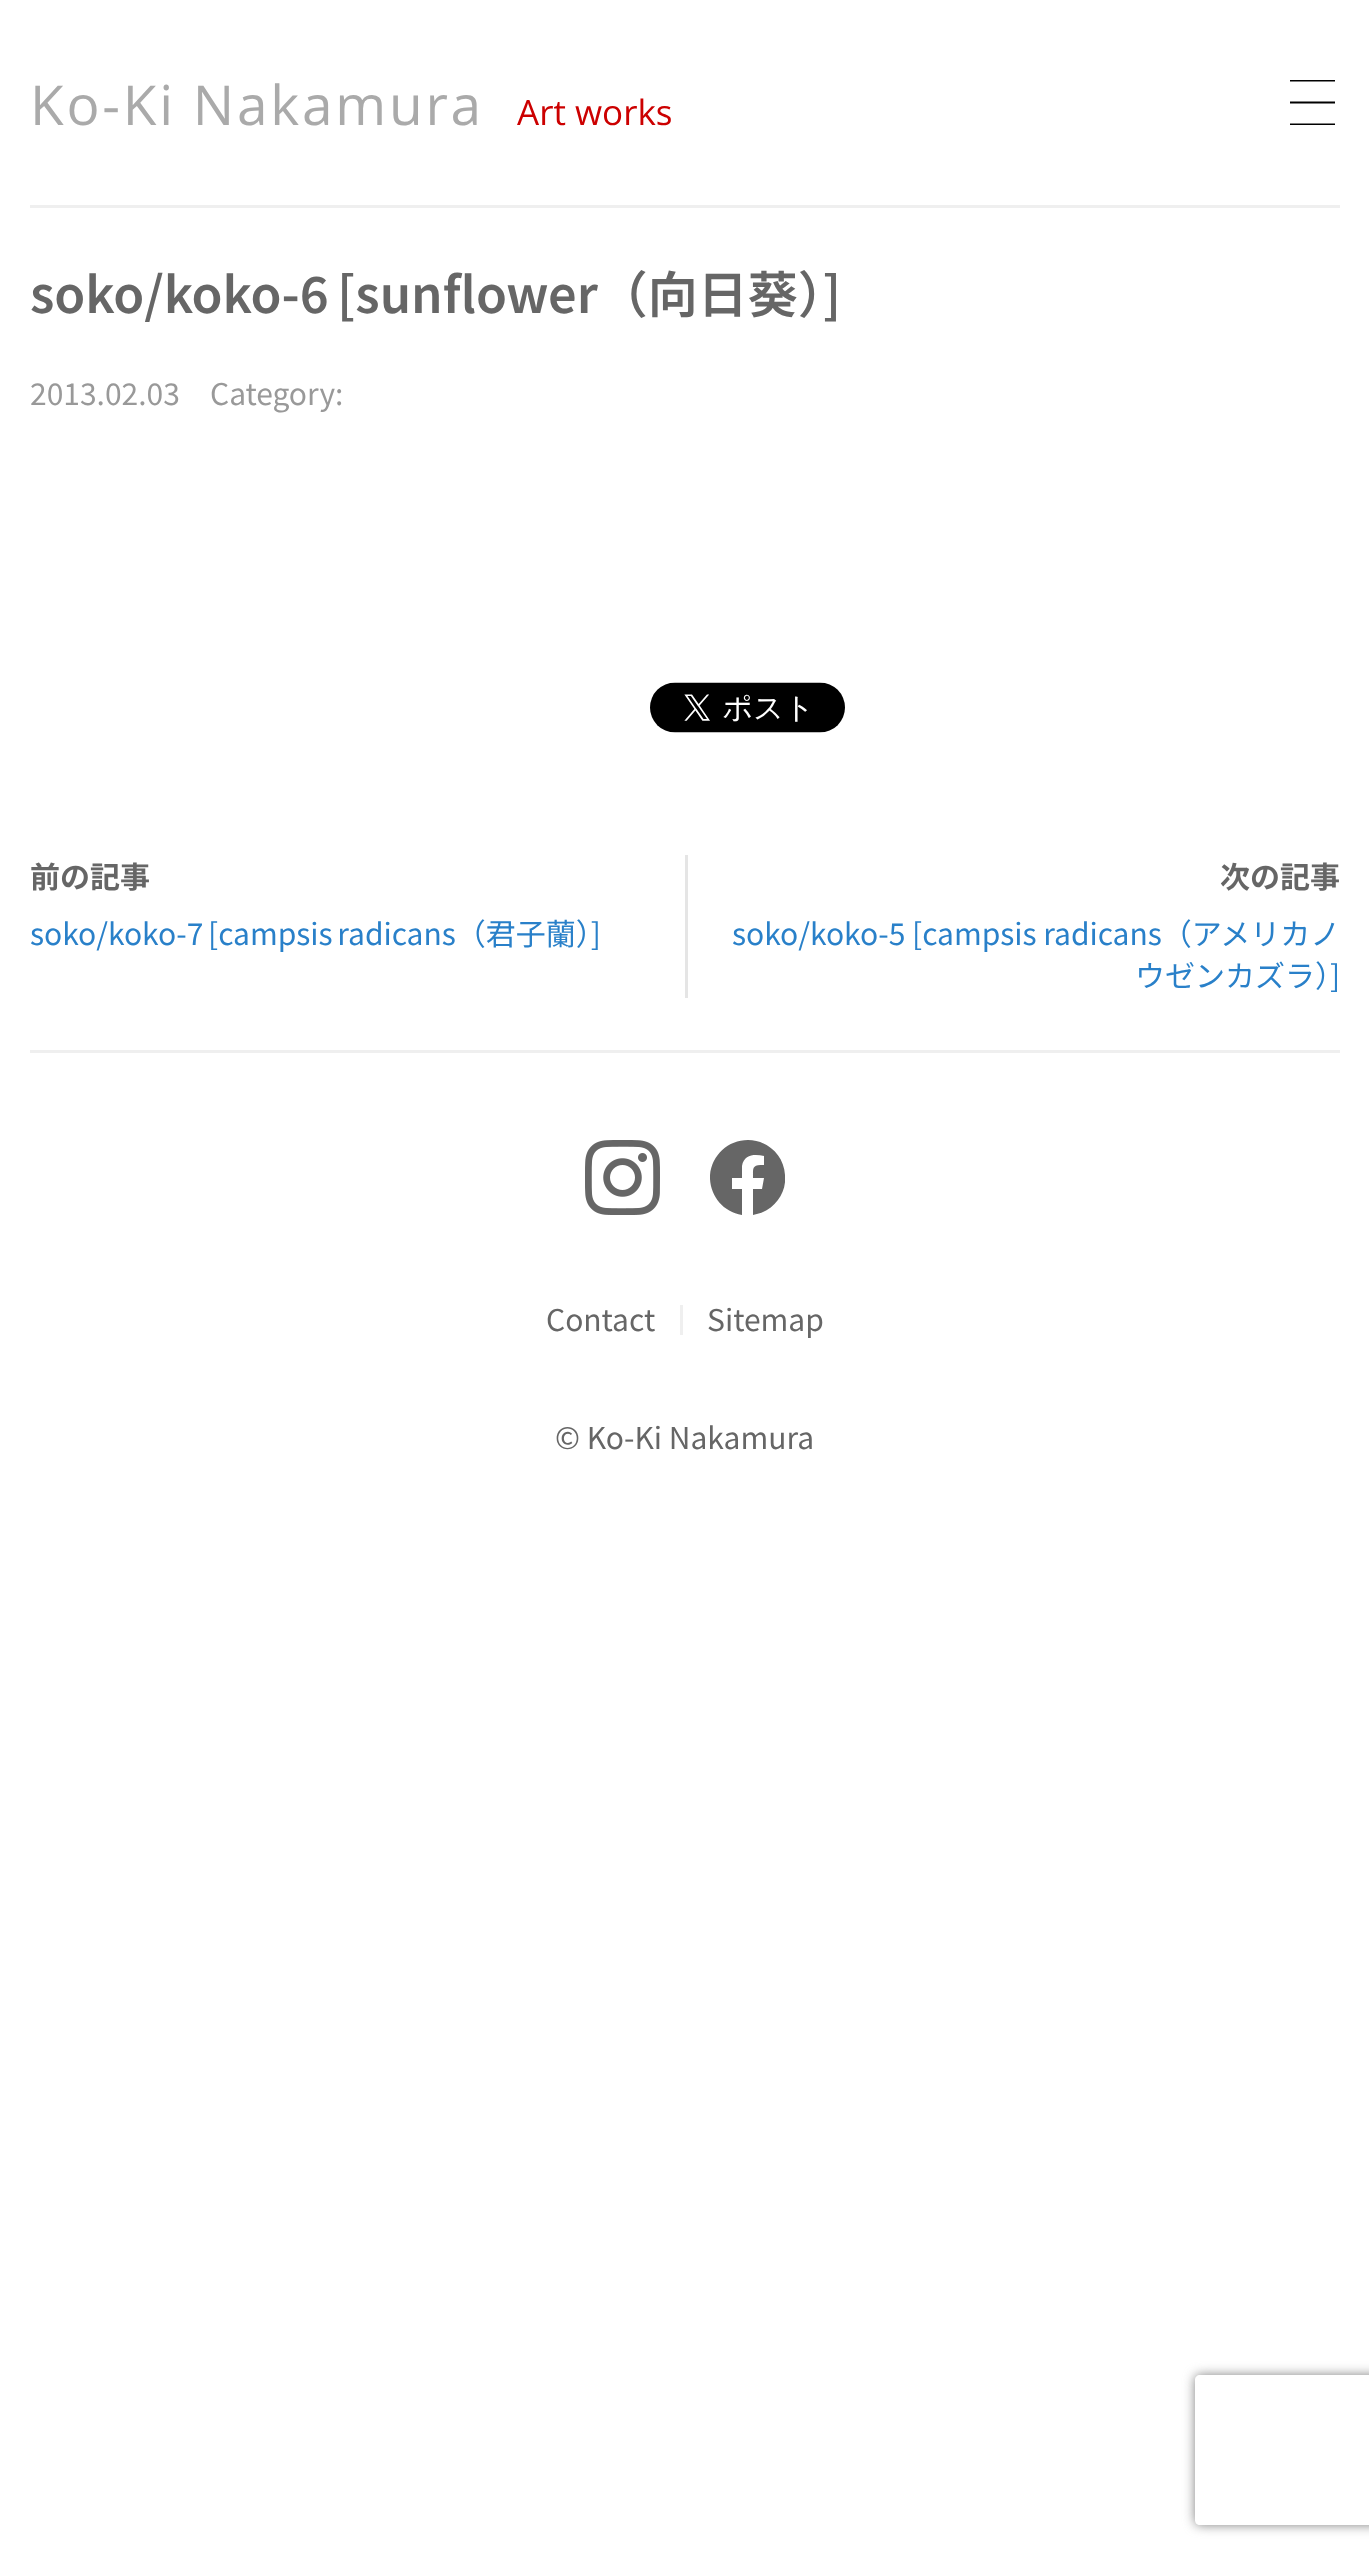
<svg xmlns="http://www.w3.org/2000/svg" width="1369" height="2560">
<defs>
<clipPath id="clip1"><rect x="1290" y="80" width="45" height="45"/></clipPath>
<clipPath id="clip2"><rect x="710" y="1140" width="75" height="75"/></clipPath>
<clipPath id="clip3"><path d="M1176 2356h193v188h-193zm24 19h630c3 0 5 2 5 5v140c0 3-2 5-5 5h-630c-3 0-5-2-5-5v-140c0-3 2-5 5-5z" clip-rule="evenodd"/></clipPath>
</defs>
<rect width="100%" height="100%" fill="#fff"/>
<rect x="30" y="205" width="1310" height="3" fill="#efefef"/>
<text x="30" y="125" style="font-family:Open Sans;font-size:55px;letter-spacing:2.75px;fill:#aaa">Ko-Ki Nakamura</text>
<text x="517" y="125" style="font-family:Open Sans;font-size:35px;fill:#c00">Art works</text>
<g clip-path="url(#clip1)">
<path d="M1290 80.5h45" fill="none" stroke="#000" stroke-width="2.2"/>
</g>
<path d="M1290 102.5h45" fill="none" stroke="#000" stroke-width="2.2"/>
<g clip-path="url(#clip1)">
<path d="M1290 124.5h45" fill="none" stroke="#000" stroke-width="2.2"/>
</g>
<text x="30" y="313" word-spacing="-3" style="font-family:Noto Sans JP;font-size:50px;font-weight:600;fill:#666">soko/koko-6 [sunflower（向日葵）]</text>
<text x="30" y="405" style="font-family:Noto Sans JP;font-size:30px;fill:#999">2013.02.03</text>
<text x="210" y="405" style="font-family:Noto Sans JP;font-size:30px;fill:#999">Category:</text>
<image x="650" y="682" width="195" height="51" href="media/1.png"/>
<text x="30" y="888" style="font-family:Noto Sans JP;font-size:30px;font-weight:bold;fill:#666">前の記事</text>
<text x="30" y="945" word-spacing="-2" style="font-family:Noto Sans JP;font-size:30px;fill:#2980c9">soko/koko-7 [campsis radicans（君子蘭）]</text>
<rect x="685" y="855" width="3" height="143" fill="#e5e5e5"/>
<text x="1220" y="888" style="font-family:Noto Sans JP;font-size:30px;font-weight:bold;fill:#666">次の記事</text>
<text x="732" y="945" style="font-family:Noto Sans JP;font-size:30px;fill:#2980c9">soko/koko-5 [campsis radicans（アメリカノ</text>
<text x="1135" y="987" style="font-family:Noto Sans JP;font-size:30px;fill:#2980c9">ウゼンカズラ）]</text>
<rect x="30" y="1050" width="1310" height="3" fill="#efefef"/>
<image x="585" y="1140" width="75" height="75" href="media/2.png"/>
<g clip-path="url(#clip2)">
<path d="M748 1140c-20 0-36 15-38 35c-1 19 12 37 32 40v-26h-10v-11h10v-12c2-12 13-12 22-10v9c-12 0-11 2-11 13h11l-2 11h-9v26c20-3 34-21 32-40c-1-20-18-35-37-35z" fill="#666"/>
</g>
<text x="546" y="1331" style="font-family:Noto Sans JP;font-size:30px;fill:#666">Contact</text>
<rect x="680" y="1305" width="3" height="30" fill="#efefef"/>
<text x="707" y="1331" style="font-family:Noto Sans JP;font-size:30px;fill:#666">Sitemap</text>
<text x="555" y="1449" style="font-family:Noto Sans JP;font-size:30px;fill:#666">© Ko-Ki Nakamura</text>
<g clip-path="url(#clip3)">
<rect x="1195" y="2375" width="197" height="150" rx="5" fill="#808080" filter="blur(6px)"/>
</g>
</svg>
